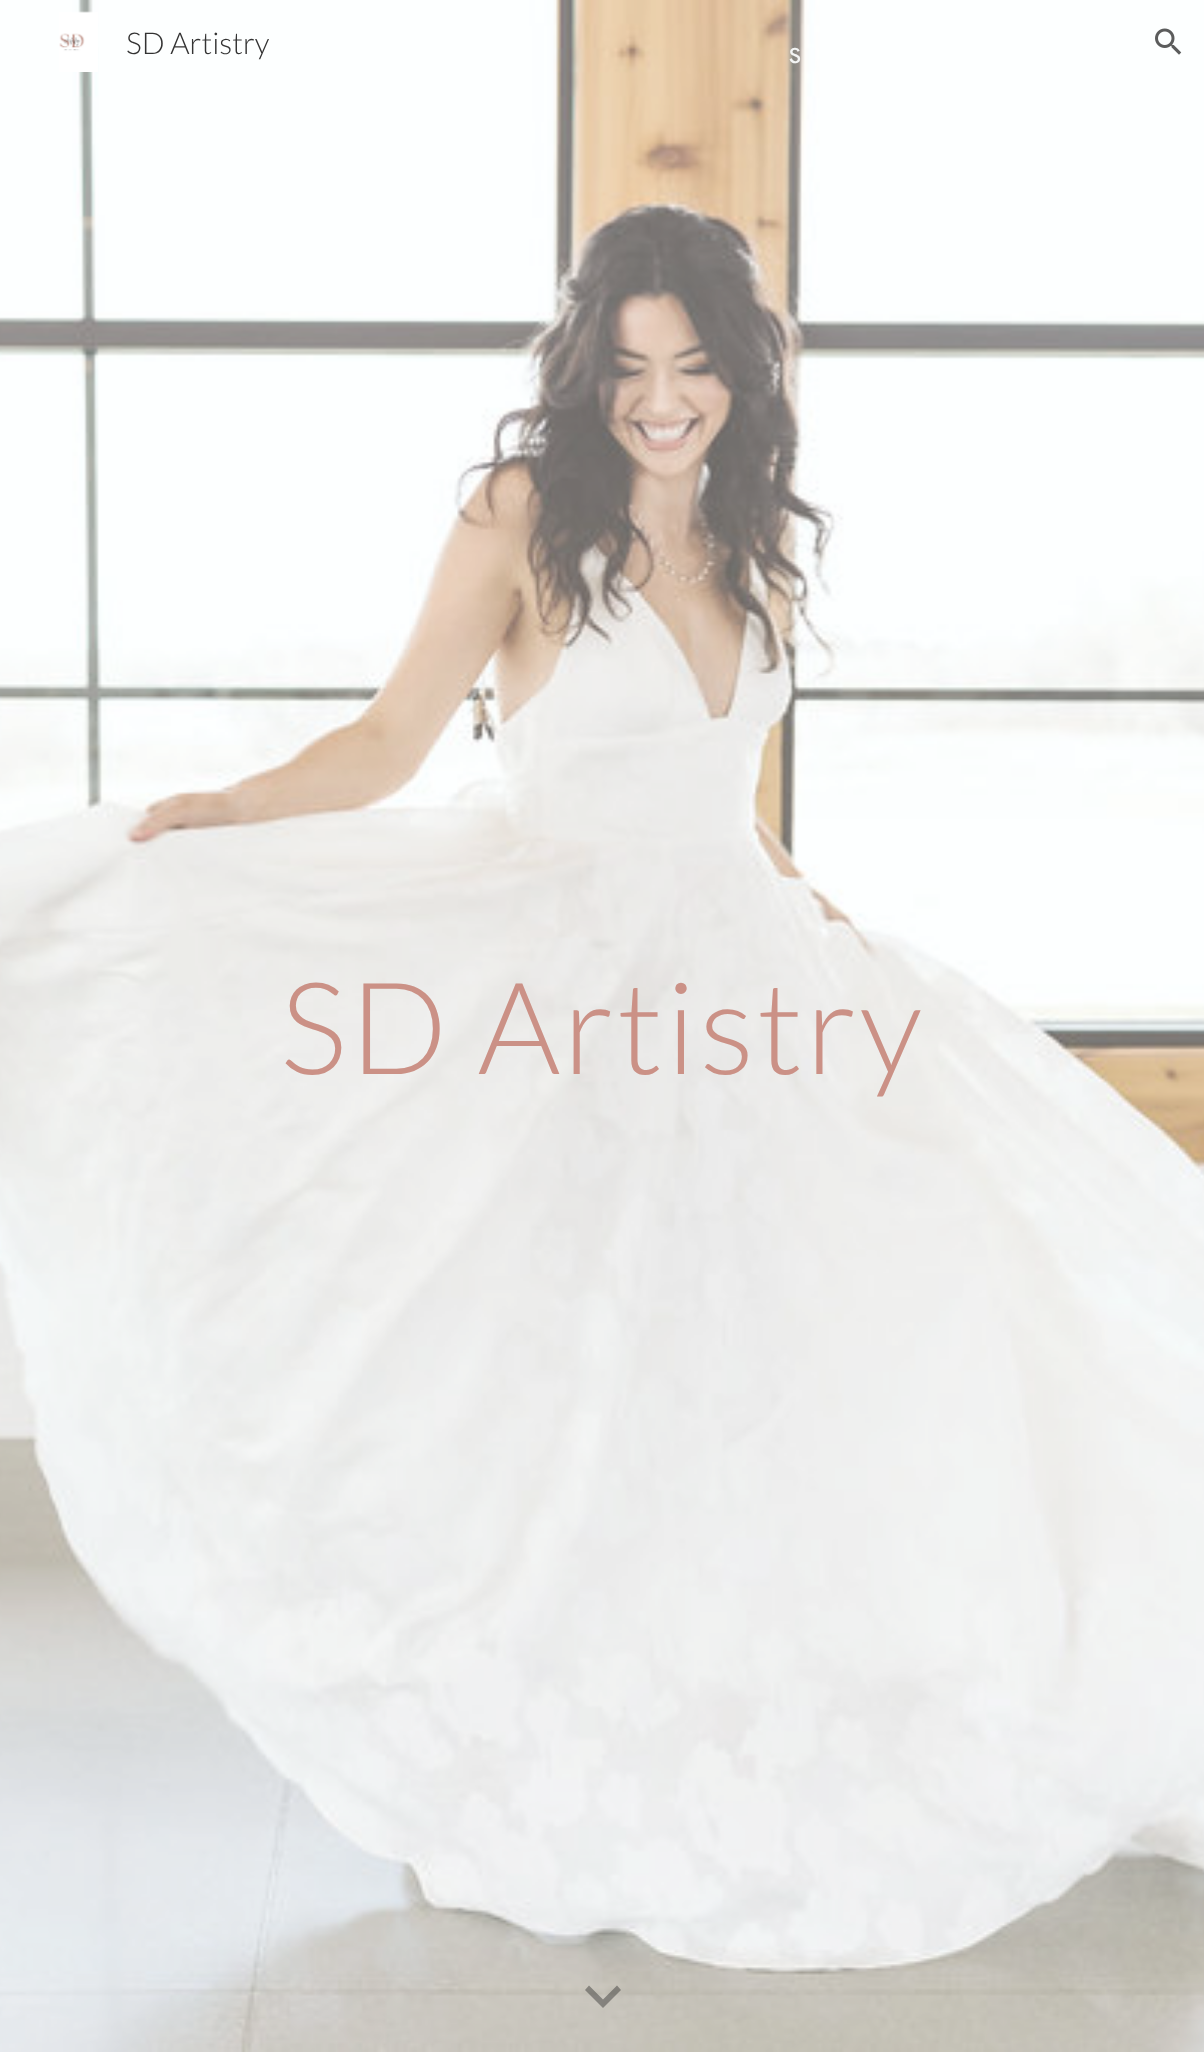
<svg xmlns="http://www.w3.org/2000/svg" width="1204" height="2052">
<rect width="100%" height="100%" fill="#fff"/>
<image x="0" y="0" width="1204" height="2052" href="media/3.png"/>
<image x="59" y="11" width="39" height="61" href="media/1.png"/>
<text x="126" y="54" style="font-family:Lato;font-size:30px;font-weight:300;fill:#333">SD Artistry</text>
<image x="1155" y="28" width="27" height="27" href="media/2.png"/>
<text x="280" y="1074" style="font-family:Lato;font-size:128px;font-weight:300;letter-spacing:3px;fill:#cb9186">SD Artistry</text>
<path d="M589 1985.5l14 14l14-14l4 4.5l-18 18l-18-18z" fill="#21212166"/>
<text x="789" y="63" style="font-family:Google Sans;font-size:21px;font-weight:500;fill:#f4f5f5">S</text>
</svg>
